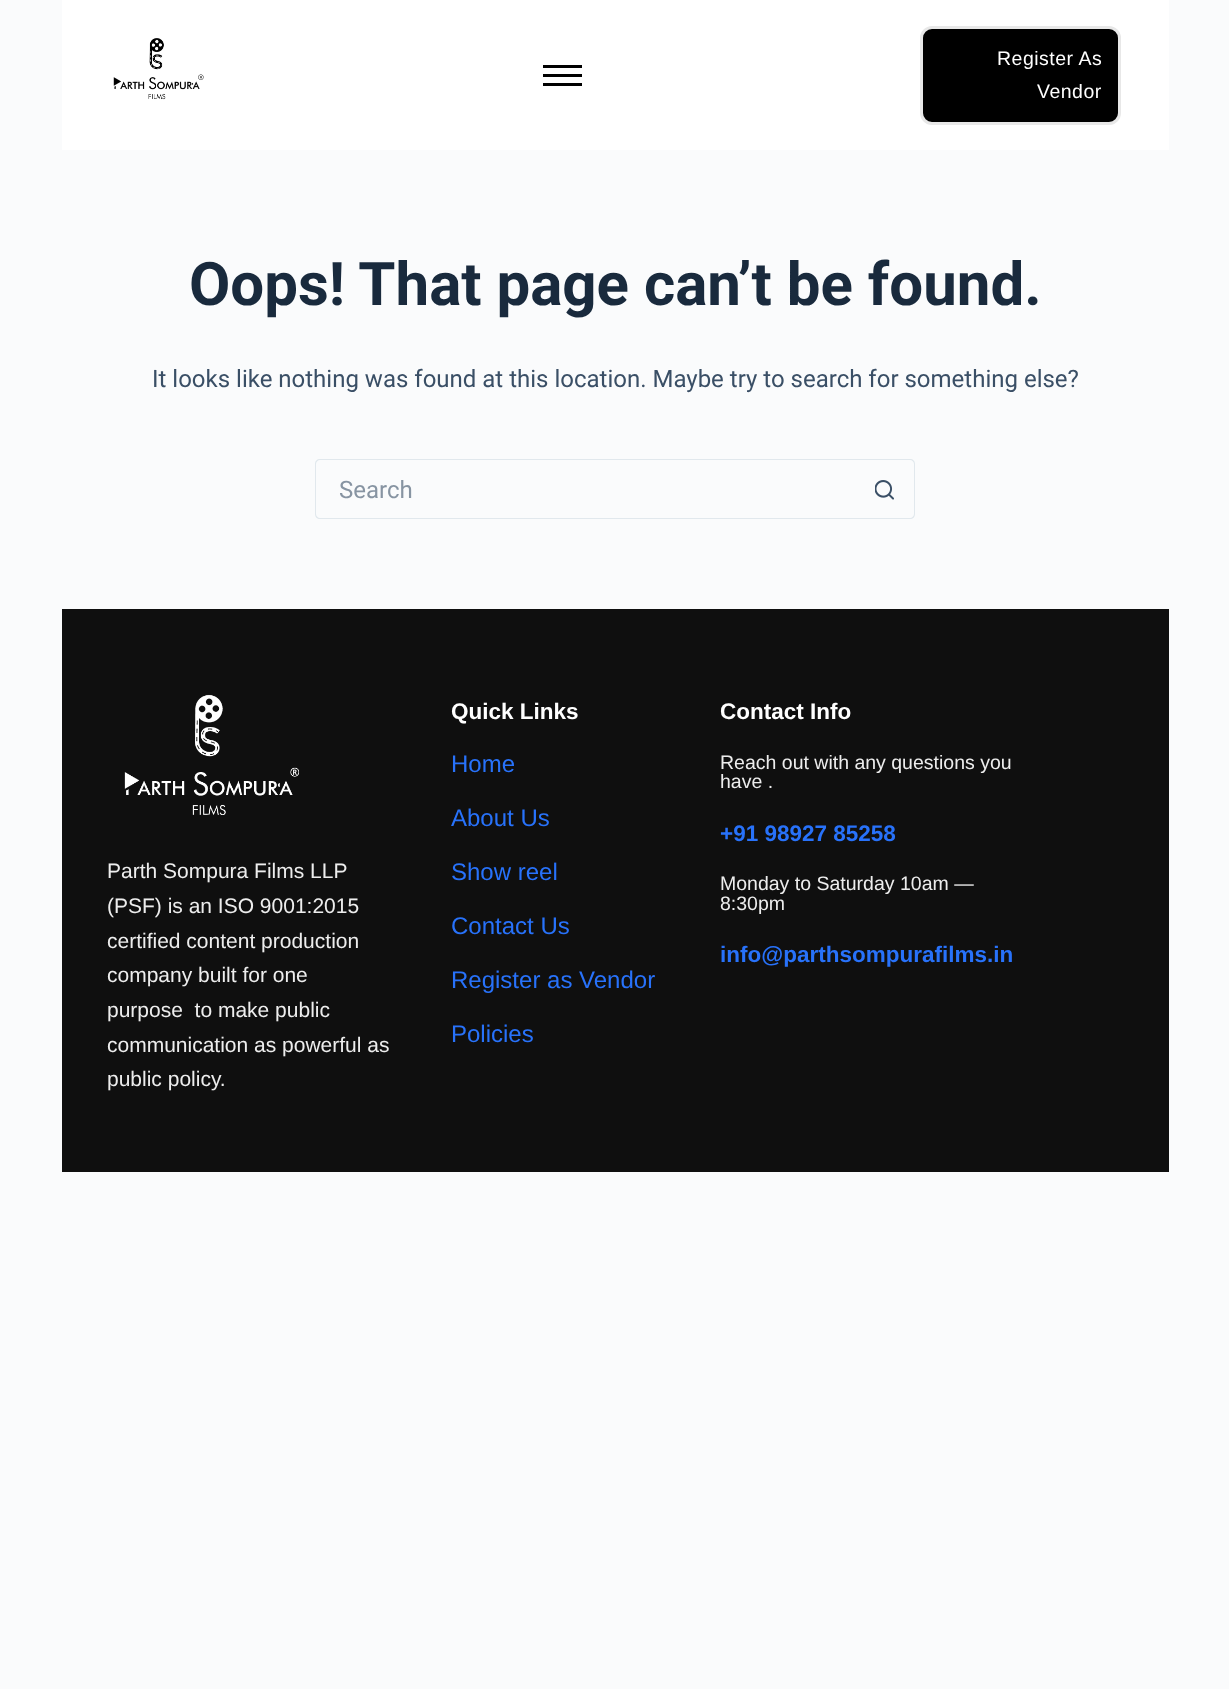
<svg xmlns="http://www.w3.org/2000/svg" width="1229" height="1689">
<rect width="100%" height="100%" fill="#fafbfc"/>
<rect x="62" width="1107" height="150" fill="#fff"/>
<image x="113" y="38" width="91" height="62" href="media/1.png"/>
<rect x="543" y="65" width="39" height="3" fill="#000"/>
<rect x="543" y="74" width="39" height="3" fill="#000"/>
<rect x="543" y="83" width="39" height="3" fill="#000"/>
<rect x="921.5" y="27.5" width="198" height="96" rx="10.5" fill="#000" stroke="#e8e8e8" stroke-width="3"/>
<text x="997" y="65" style="font-family:Liberation Sans;font-size:19.5px;letter-spacing:0.5px;fill:#fff">Register As</text>
<text x="1037" y="98" style="font-family:Liberation Sans;font-size:19.5px;letter-spacing:0.5px;fill:#fff">Vendor</text>
<text x="189" y="305" style="font-family:Roboto;font-size:60px;font-weight:bold;fill:#192a3d">Oops! That page can’t be found.</text>
<text x="152" y="387" style="font-family:Roboto;font-size:24px;fill:#3a4f66">It looks like nothing was found at this location. Maybe try to search for something else?</text>
<path d="M320 459h535v60h-535c-3 0-5-2-5-5v-50c0-3 2-5 5-5zm0 1h535v58h-535c-2 0-4-2-4-4v-50c0-2 2-4 4-4z" fill="#e1e8ed" fill-rule="evenodd"/>
<text x="339" y="498" style="font-family:Roboto;font-size:24px;fill:#8794a2">Search</text>
<path d="M855 459h55c3 0 5 2 5 5v50c0 3-2 5-5 5h-55zm0 1h55c2 0 4 2 4 4v50c0 2-2 4-4 4h-55z" fill="#e1e8ed" fill-rule="evenodd"/>
<image x="875" y="480" width="19" height="20" href="media/2.png"/>
<rect x="62" y="609" width="1107" height="563" fill="#0f0f0f"/>
<image x="124" y="694" width="175" height="121" href="media/3.png"/>
<text x="107" y="878" style="font-family:Liberation Sans;font-size:21px;fill:#ededed">Parth Sompura Films LLP</text>
<text x="107" y="913" style="font-family:Liberation Sans;font-size:21px;fill:#ededed">(PSF) is an ISO 9001:2015</text>
<text x="107" y="948" style="font-family:Liberation Sans;font-size:21px;fill:#ededed">certified content production</text>
<text x="107" y="982" style="font-family:Liberation Sans;font-size:21px;fill:#ededed">company built for one</text>
<text x="107" y="1017" style="font-family:Liberation Sans;font-size:21px;fill:#ededed" xml:space="preserve">purpose  to make public</text>
<text x="107" y="1052" style="font-family:Liberation Sans;font-size:21px;fill:#ededed">communication as powerful as</text>
<text x="107" y="1086" style="font-family:Liberation Sans;font-size:21px;fill:#ededed">public policy.</text>
<text x="451" y="719" style="font-family:Liberation Sans;font-size:22.5px;font-weight:bold;fill:#fff">Quick Links</text>
<text x="451" y="772" style="font-family:Liberation Sans;font-size:24px;fill:#2872fa">Home</text>
<text x="451" y="826" style="font-family:Liberation Sans;font-size:24px;fill:#2872fa">About Us</text>
<text x="451" y="880" style="font-family:Liberation Sans;font-size:24px;fill:#2872fa">Show reel</text>
<text x="451" y="934" style="font-family:Liberation Sans;font-size:24px;fill:#2872fa">Contact Us</text>
<text x="451" y="988" style="font-family:Liberation Sans;font-size:24px;fill:#2872fa">Register as Vendor</text>
<text x="451" y="1042" style="font-family:Liberation Sans;font-size:24px;fill:#2872fa">Policies</text>
<text x="720" y="719" style="font-family:Liberation Sans;font-size:22.5px;font-weight:bold;fill:#fff">Contact Info</text>
<text x="720" y="769" style="font-family:Liberation Sans;font-size:19.5px;fill:#ededed">Reach out with any questions you</text>
<text x="720" y="788" style="font-family:Liberation Sans;font-size:19.5px;fill:#ededed">have .</text>
<text x="720" y="841" style="font-family:Liberation Sans;font-size:22.5px;font-weight:bold;fill:#2872fa">+91 98927 85258</text>
<text x="720" y="890" style="font-family:Liberation Sans;font-size:19.5px;fill:#ededed">Monday to Saturday 10am —</text>
<text x="720" y="910" style="font-family:Liberation Sans;font-size:19.5px;fill:#ededed">8:30pm</text>
<text x="720" y="962" style="font-family:Liberation Sans;font-size:22.5px;font-weight:bold;fill:#2872fa">info@parthsompurafilms.in</text>
</svg>
